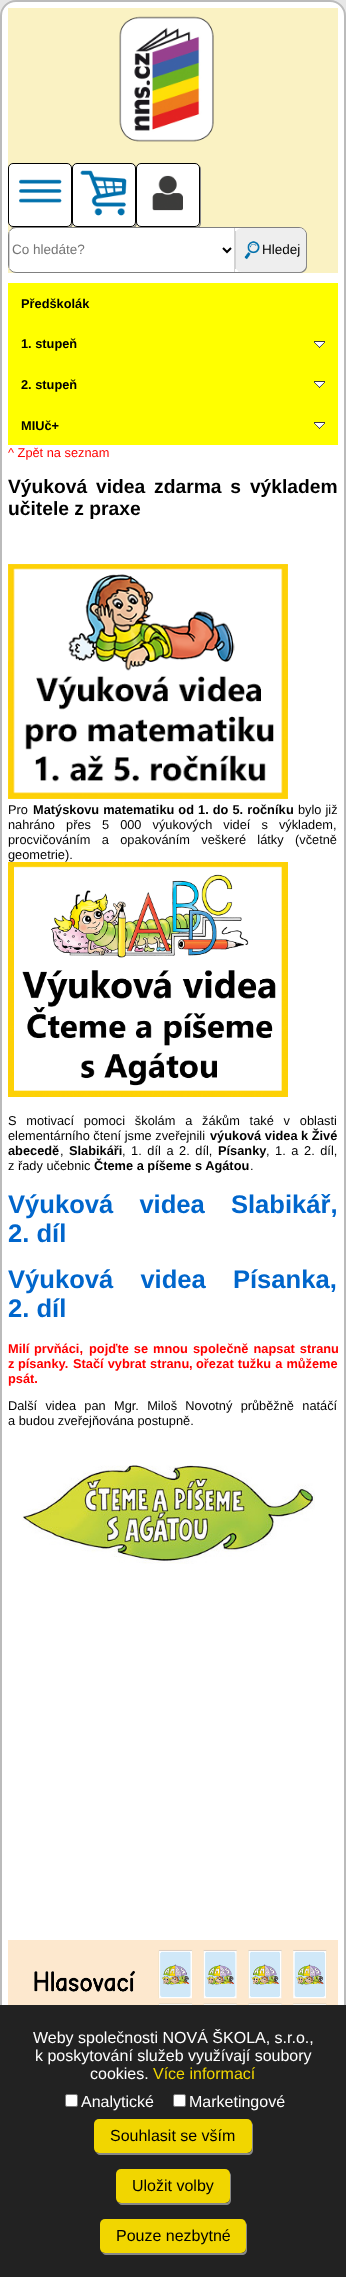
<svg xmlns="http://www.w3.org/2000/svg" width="346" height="2277">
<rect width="100%" height="100%" fill="#e7e7e7"/>
<rect x="1" y="1" width="344" height="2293" rx="15" fill="#fff" stroke="#bbb" stroke-width="2"/>
<rect x="8" y="8" width="330" height="265" fill="#faf2c3"/>
<image x="119" y="16" width="95" height="126" href="media/1.png"/>
<path d="M10 226c1 1 2 2 4 2h54c3 0 5-2 5-5v-54c0-2-1-3-2-4c1 1 1 2 1 3v54c0 3-2 5-5 5h-54c-1 0-2 0-3-1z" fill="#888"/>
<rect x="8.5" y="163.5" width="63" height="63" rx="4.5" fill="#fff" stroke="#000"/>
<image x="19" y="179" width="43" height="24" href="media/2.png"/>
<path d="M74 226c1 1 2 2 4 2h54c3 0 5-2 5-5v-54c0-2-1-3-2-4c1 1 1 2 1 3v54c0 3-2 5-5 5h-54c-1 0-2 0-3-1z" fill="#888"/>
<rect x="72.5" y="163.5" width="63" height="63" rx="4.5" fill="#fff" stroke="#000"/>
<image x="80" y="170" width="47" height="46" href="media/3.png"/>
<rect x="8.5" y="227.5" width="298" height="45" rx="7.5" fill="#fff" stroke="#808080"/>
<path d="M138 226c1 1 2 2 4 2h54c3 0 5-2 5-5v-54c0-2-1-3-2-4c1 1 1 2 1 3v54c0 3-2 5-5 5h-54c-1 0-2 0-3-1z" fill="#888"/>
<rect x="136.5" y="163.5" width="63" height="63" rx="4.5" fill="#fff" stroke="#000"/>
<image x="152" y="175" width="31" height="36" href="media/4.png"/>
<rect x="9" y="231" width="1" height="38" fill="#d3d3d3"/>
<text x="12" y="254" style="font-family:Liberation Sans;font-size:13.5px;fill:#757575">Co hledáte?</text>
<rect x="234" y="228" width="1" height="44" fill="#d3d3d3"/>
<path d="M223 248l4 4l4-4" fill="none" stroke="#000" stroke-width="2"/>
<path d="M238 271c1 1 3 2 5 2h57c4 0 7-3 7-7v-30c0-2-1-4-2-5c1 1 1 2 1 4v30c0 4-3 7-7 7h-57c-2 0-3 0-4-1z" fill="#888"/>
<rect x="235" y="228" width="71" height="44" rx="7" fill="#eee"/>
<rect x="235" y="231" width="1" height="38" fill="#d3d3d3"/>
<image x="244" y="241" width="16" height="19" href="media/5.png"/>
<text x="262" y="254" style="font-family:Liberation Sans;font-size:13.5px;fill:#000">Hledej</text>
<rect x="8" y="283" width="330" height="162" fill="#ff0"/>
<text x="21" y="308" style="font-family:Liberation Sans;font-size:12.8px;font-weight:bold;fill:#000">Předškolák</text>
<image x="314" y="341" width="11" height="7" href="media/6.png"/>
<text x="21" y="348" style="font-family:Liberation Sans;font-size:12.8px;font-weight:bold;fill:#000">1. stupeň</text>
<image x="314" y="381" width="11" height="7" href="media/6.png"/>
<text x="21" y="389" style="font-family:Liberation Sans;font-size:12.8px;font-weight:bold;fill:#000">2. stupeň</text>
<image x="314" y="422" width="11" height="7" href="media/6.png"/>
<text x="21" y="430" style="font-family:Liberation Sans;font-size:12.8px;font-weight:bold;fill:#000">MIUč+</text>
<text x="8" y="457" style="font-family:Liberation Sans;font-size:12.8px;fill:#f00">^ Zpět na seznam</text>
<text x="8" y="493" word-spacing="3.5" style="font-family:Liberation Sans;font-size:19.25px;font-weight:bold;fill:#000">Výuková videa zdarma s výkladem</text>
<text x="8" y="515" style="font-family:Liberation Sans;font-size:19.25px;font-weight:bold;fill:#000">učitele z praxe</text>
<image x="8" y="564" width="280" height="235" href="media/7.png"/>
<text x="8" y="814" style="font-family:Liberation Sans;font-size:12.8px;fill:#000">Pro</text>
<text x="33" y="814" word-spacing="0.5" style="font-family:Liberation Sans;font-size:12.8px;font-weight:bold;fill:#000">Matýskovu matematiku od 1. do 5. ročník</text>
<text x="286" y="814" style="font-family:Liberation Sans;font-size:12.8px;font-weight:bold;fill:#000">u</text>
<text x="298" y="814" word-spacing="0.5" style="font-family:Liberation Sans;font-size:12.8px;fill:#000">bylo již</text>
<text x="8" y="829" word-spacing="7.5" style="font-family:Liberation Sans;font-size:12.8px;fill:#000">nahráno přes 5 000 výukových videí s výkladem,</text>
<text x="8" y="844" word-spacing="7.75" style="font-family:Liberation Sans;font-size:12.8px;fill:#000">procvičováním a opakováním veškeré látky (včetně</text>
<text x="8" y="859" style="font-family:Liberation Sans;font-size:12.8px;fill:#000">geometrie).</text>
<image x="8" y="862" width="280" height="235" href="media/8.png"/>
<text x="8" y="1125" word-spacing="6.25" style="font-family:Liberation Sans;font-size:12.8px;fill:#000">S motivací pomoci školám a žákům také v oblasti</text>
<text x="8" y="1140" style="font-family:Liberation Sans;font-size:12.8px;fill:#000">elementárního čtení jsme zveřejnili</text>
<text x="210" y="1140" style="font-family:Liberation Sans;font-size:12.8px;font-weight:bold;fill:#000">výuková videa k Živé</text>
<text x="8" y="1155" style="font-family:Liberation Sans;font-size:12.8px;font-weight:bold;fill:#000">abecedě</text>
<text x="60" y="1155" style="font-family:Liberation Sans;font-size:12.8px;fill:#000">,</text>
<text x="69" y="1155" style="font-family:Liberation Sans;font-size:12.8px;font-weight:bold;fill:#000">Slabikáři</text>
<text x="122" y="1155" word-spacing="2" style="font-family:Liberation Sans;font-size:12.8px;fill:#000">, 1. díl a 2. díl,</text>
<text x="218" y="1155" style="font-family:Liberation Sans;font-size:12.8px;font-weight:bold;fill:#000">Písanky</text>
<text x="266" y="1155" word-spacing="2" style="font-family:Liberation Sans;font-size:12.8px;fill:#000">, 1. a 2. díl,</text>
<text x="8" y="1170" style="font-family:Liberation Sans;font-size:12.8px;fill:#000">z řady učebnic</text>
<text x="94" y="1170" style="font-family:Liberation Sans;font-size:12.8px;font-weight:bold;fill:#000">Čteme a píšeme s Agátou</text>
<text x="250" y="1170" style="font-family:Liberation Sans;font-size:12.8px;fill:#000">.</text>
<text x="8" y="1213" word-spacing="19" style="font-family:Liberation Sans;font-size:25.6px;font-weight:bold;fill:#06c">Výuková videa Slabikář,</text>
<text x="8" y="1242" style="font-family:Liberation Sans;font-size:25.6px;font-weight:bold;fill:#06c">2. díl</text>
<text x="8" y="1288" word-spacing="20" style="font-family:Liberation Sans;font-size:25.6px;font-weight:bold;fill:#06c">Výuková videa Písanka,</text>
<text x="8" y="1317" style="font-family:Liberation Sans;font-size:25.6px;font-weight:bold;fill:#06c">2. díl</text>
<text x="8" y="1353" word-spacing="1" style="font-family:Liberation Sans;font-size:12.8px;font-weight:bold;fill:#f00">Milí prvňáci,</text>
<text x="89" y="1353" word-spacing="1.5" style="font-family:Liberation Sans;font-size:12.8px;font-weight:bold;fill:#f00">pojďte se mnou společně napsat stranu</text>
<text x="8" y="1368" style="font-family:Liberation Sans;font-size:12.8px;font-weight:bold;fill:#f00">z písanky.</text>
<text x="73" y="1368" word-spacing="0.5" style="font-family:Liberation Sans;font-size:12.8px;font-weight:bold;fill:#f00">Stačí vybrat stranu</text>
<text x="189" y="1368" style="font-family:Liberation Sans;font-size:12.8px;font-weight:bold;fill:#f00">,</text>
<text x="196" y="1368" word-spacing="0.5" style="font-family:Liberation Sans;font-size:12.8px;font-weight:bold;fill:#f00">ořezat tužku a můžeme</text>
<text x="8" y="1383" style="font-family:Liberation Sans;font-size:12.8px;font-weight:bold;fill:#f00">psát.</text>
<text x="8" y="1410" word-spacing="4.75" style="font-family:Liberation Sans;font-size:12.8px;fill:#000">Další videa pan Mgr. Miloš Novotný průběžně natáčí</text>
<text x="8" y="1425" style="font-family:Liberation Sans;font-size:12.8px;fill:#000">a budou zveřejňována postupně.</text>
<image x="22" y="1465" width="293" height="99" href="media/9.png"/>
<image x="8" y="1940" width="330" height="65" href="media/10.png"/>
<rect y="2005" width="346" height="272" fill="#222"/>
<text x="33" y="2043" style="font-family:Liberation Sans;font-size:16px;fill:#fff">Weby společnosti NOVÁ ŠKOLA, s.r.o.,</text>
<text x="35" y="2061" style="font-family:Liberation Sans;font-size:16px;fill:#fff">k poskytování služeb využívají soubory</text>
<text x="90" y="2079" style="font-family:Liberation Sans;font-size:16px;fill:#fff">cookies.</text>
<text x="153" y="2079" style="font-family:Liberation Sans;font-size:16px;fill:#f1d600">Více informací</text>
<rect x="65.5" y="2094.5" width="12" height="12" rx="1.5" fill="#fff" stroke="#767676"/>
<text x="81" y="2107" style="font-family:Liberation Sans;font-size:16px;fill:#fff">Analytické</text>
<rect x="173.5" y="2094.5" width="12" height="12" rx="1.5" fill="#fff" stroke="#767676"/>
<text x="189" y="2107" style="font-family:Liberation Sans;font-size:16px;fill:#fff">Marketingové</text>
<path d="M95 2151c1 2 3 4 5 4h148c3 0 5-2 5-5v-24c0-1 0-2-1-3v25c0 3-2 5-5 5h-148c-2 0-3-1-4-2z" fill="#888"/>
<rect x="94" y="2119" width="158" height="34" rx="5" fill="#f1d600"/>
<text x="110" y="2141" style="font-family:Liberation Sans;font-size:16px;fill:#000">Souhlasit se vším</text>
<path d="M117 2201c1 2 3 4 5 4h104c3 0 5-2 5-5v-24c0-1 0-2-1-3v25c0 3-2 5-5 5h-104c-2 0-3-1-4-2z" fill="#888"/>
<rect x="116" y="2169" width="114" height="34" rx="5" fill="#f1d600"/>
<text x="132" y="2191" style="font-family:Liberation Sans;font-size:16px;fill:#000">Uložit volby</text>
<path d="M101 2251c1 2 3 4 5 4h136c3 0 5-2 5-5v-24c0-1 0-2-1-3v25c0 3-2 5-5 5h-136c-2 0-3-1-4-2z" fill="#888"/>
<rect x="100" y="2219" width="146" height="34" rx="5" fill="#f1d600"/>
<text x="116" y="2241" style="font-family:Liberation Sans;font-size:16px;fill:#000">Pouze nezbytné</text>
</svg>
